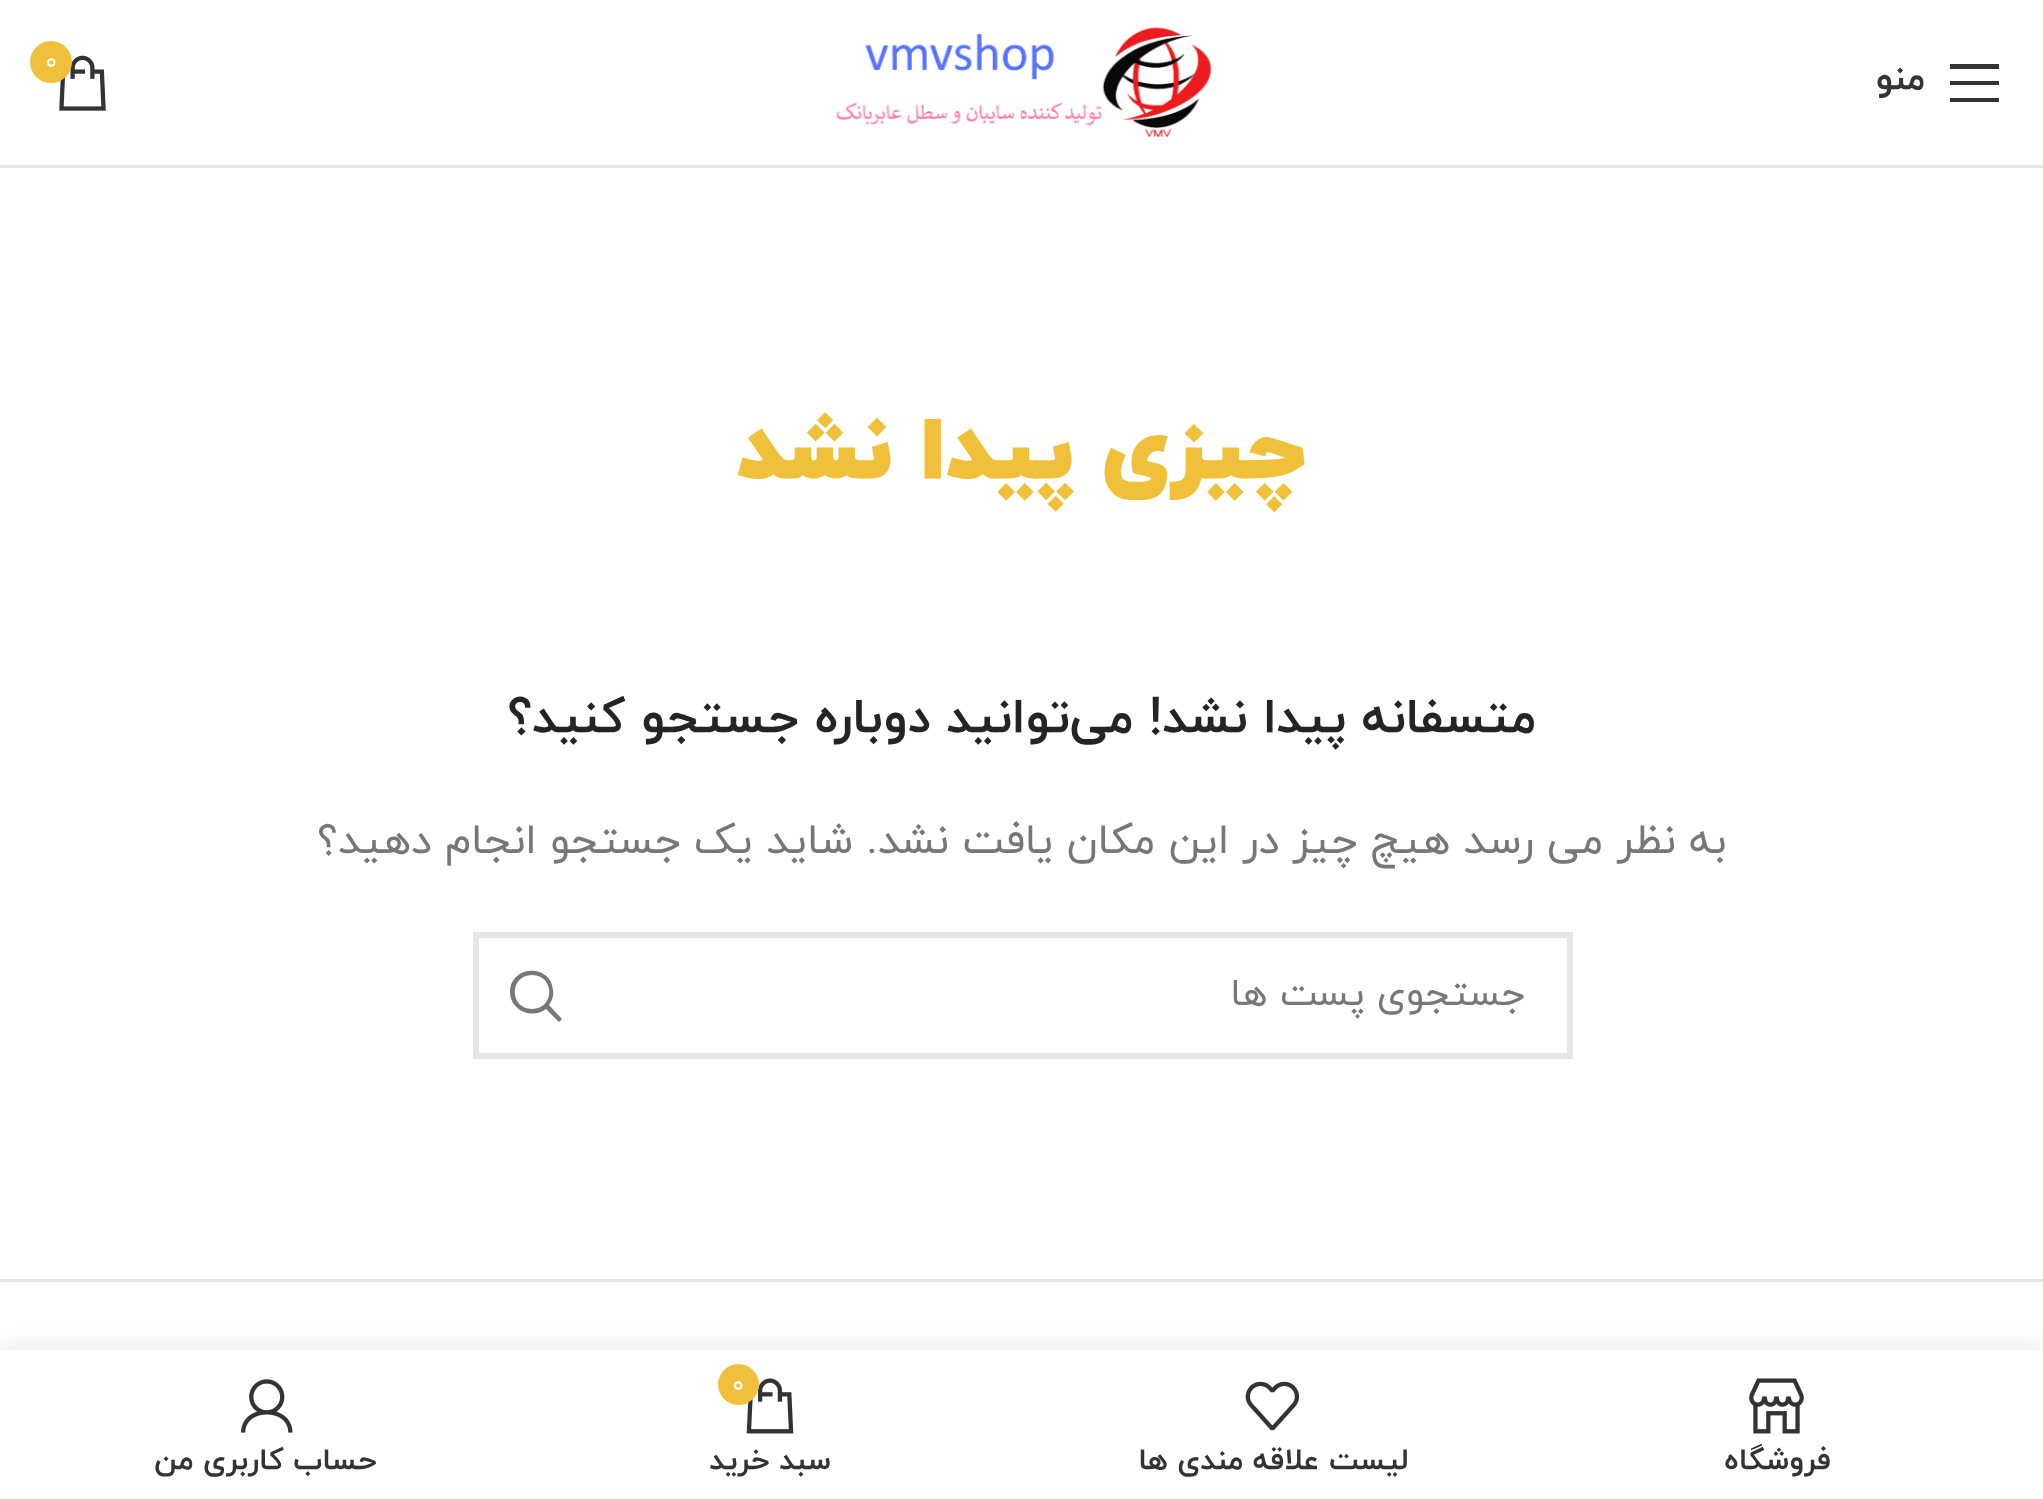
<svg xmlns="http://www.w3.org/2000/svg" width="2043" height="1499">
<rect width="100%" height="100%" fill="#fff"/>
<rect y="165" width="2043" height="3" fill="#e6e6e6"/>
<image x="836" y="27" width="376" height="111" href="media/1.png"/>
<image x="59" y="55" width="47" height="56" href="media/2.png"/>
<circle cx="51" cy="62" r="21" fill="#f0c03a"/>
<text x="45" y="69" style="font-family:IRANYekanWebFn;font-size:25px;fill:#fff">0</text>
<path d="M1950 69h49v-5h-49zm0 16h49v-4h-49zm0 17h49v-4h-49z" fill="#333"/>
<text x="1925" y="89" style="font-family:IRANYekanWebFn;font-size:36px;font-weight:bold;direction:rtl;fill:#333">منو</text>
<text x="1307" y="476" style="font-family:IRANYekanWebFn;font-size:88px;font-weight:900;direction:rtl;fill:#f0c03a">چیزی پیدا نشد</text>
<text x="1536" y="732" style="font-family:IRANYekanWebFn;font-size:49.5px;font-weight:bold;direction:rtl;fill:#242424">متسفانه پیدا نشد! می‌توانید دوباره جستجو کنید؟</text>
<text x="1726" y="853" style="font-family:IRANYekanWebFn;font-size:42.35px;direction:rtl;fill:#777">به نظر می رسد هیچ چیز در این مکان یافت نشد. شاید یک جستجو انجام دهید؟</text>
<rect x="476" y="935" width="1094" height="121" fill="none" stroke="#e6e6e6" stroke-width="6"/>
<text x="1525" y="1005" style="font-family:IRANYekanWebFn;font-size:38.5px;direction:rtl;fill:#777">جستجوی پست ها</text>
<path d="M510 992c0 18 22 28 36 17l13 13l3-3l-13-14c3-4 5-10 4-15c-2-27-43-25-43 2zm22 17c-23 0-23-34 0-34c23 0 23 34 0 34z" fill="#777"/>
<rect y="1279" width="2043" height="3" fill="#e4e4e4"/>
<rect y="1350" width="2043" height="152" fill="#0000001f" filter="blur(12.5px)"/>
<rect y="1350" width="2043" height="149" fill="#fff"/>
<image x="1749" y="1378" width="55" height="56" href="media/3.png"/>
<text x="1831" y="1469" style="font-family:IRANYekanWebFn;font-size:30.25px;font-weight:bold;direction:rtl;fill:#333">فروشگاه</text>
<image x="1245" y="1381" width="55" height="50" href="media/4.png"/>
<text x="1409" y="1469" style="font-family:IRANYekanWebFn;font-size:30.25px;font-weight:bold;direction:rtl;fill:#333">لیست علاقه مندی ها</text>
<image x="746" y="1378" width="48" height="56" href="media/5.png"/>
<circle cx="738.5" cy="1384.5" r="20.5" fill="#f0c03a"/>
<text x="732" y="1392" style="font-family:IRANYekanWebFn;font-size:25px;fill:#fff">0</text>
<text x="831" y="1469" style="font-family:IRANYekanWebFn;font-size:30.25px;font-weight:bold;direction:rtl;fill:#333">سبد خرید</text>
<image x="241" y="1379" width="52" height="54" href="media/6.png"/>
<text x="377" y="1469" style="font-family:IRANYekanWebFn;font-size:30.25px;font-weight:bold;direction:rtl;fill:#333">حساب کاربری من</text>
</svg>
